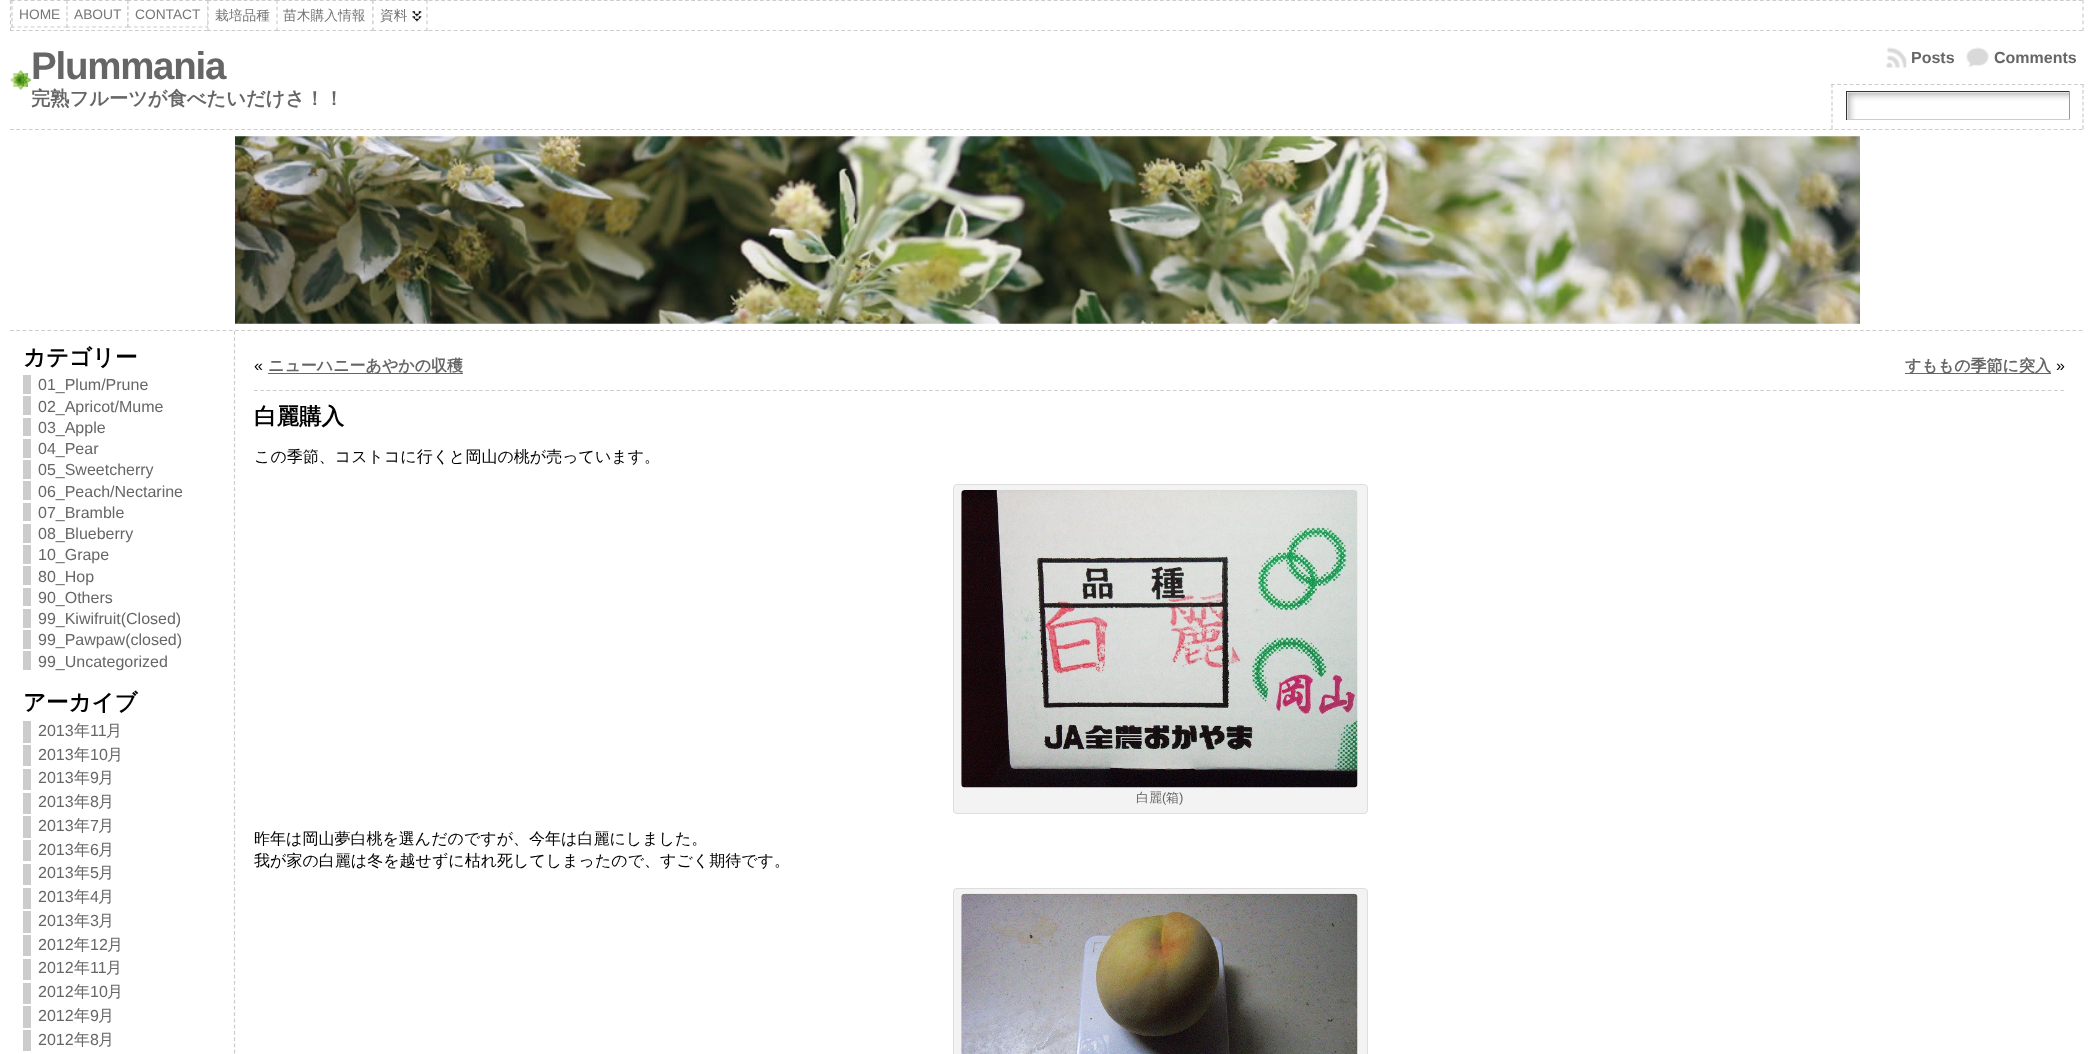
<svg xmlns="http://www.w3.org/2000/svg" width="2093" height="1054">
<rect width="100%" height="100%" fill="#fff"/>
<path d="M10 .5h2074" fill="none" stroke="#ccc" stroke-width="1.2" stroke-dasharray="3.75 2.5"/>
<path d="M2083 0v31" fill="none" stroke="#ccc" stroke-width="1.2" stroke-dasharray="3.75 3.12"/>
<path d="M10 30.5h2074" fill="none" stroke="#ccc" stroke-width="1.2" stroke-dasharray="3.75 2.5"/>
<path d="M10.5 0v31" fill="none" stroke="#ccc" stroke-width="1.2" stroke-dasharray="3.75 3.12"/>
<rect x="11" width="53" height="24" fill="#fff"/>
<path d="M11 .5h56.5m-56.5 26.5h56.5" fill="none" stroke="#ccc" stroke-width="1.2" stroke-dasharray="3.75 2.81"/>
<path d="M12 0v27.5" fill="none" stroke="#ccc" stroke-width="1.2" stroke-dasharray="3.75 2.19"/>
<text x="19" y="19" style="font-family:Liberation Sans;font-size:13.75px;fill:#777">HOME</text>
<rect x="66" width="61" height="28" fill="#fff"/>
<path d="M66 .5h63" fill="none" stroke="#ccc" stroke-width="1.2" stroke-dasharray="3.75 2.78"/>
<path d="M128 0v27.5" fill="none" stroke="#ccc" stroke-width="1.2" stroke-dasharray="3.75 2.19"/>
<path d="M66 27h63" fill="none" stroke="#ccc" stroke-width="1.2" stroke-dasharray="3.75 2.78"/>
<path d="M67 0v27.5" fill="none" stroke="#ccc" stroke-width="1.2" stroke-dasharray="3.75 2.19"/>
<text x="74" y="19" style="font-family:Liberation Sans;font-size:13.75px;fill:#777">ABOUT</text>
<rect x="128" width="80" height="28" fill="#fff"/>
<path d="M127.5 .5h81.5" fill="none" stroke="#ccc" stroke-width="1.2" stroke-dasharray="3.75 2.71"/>
<path d="M208 0v27.5" fill="none" stroke="#ccc" stroke-width="1.2" stroke-dasharray="3.75 2.19"/>
<path d="M127.5 27h81.5" fill="none" stroke="#ccc" stroke-width="1.2" stroke-dasharray="3.75 2.71"/>
<path d="M128 0v27.5" fill="none" stroke="#ccc" stroke-width="1.2" stroke-dasharray="3.75 2.19"/>
<text x="135" y="19" style="font-family:Liberation Sans;font-size:13.75px;fill:#777">CONTACT</text>
<rect x="208" width="68" height="31" fill="#fff"/>
<path d="M207.5 .5h70" fill="none" stroke="#ccc" stroke-width="1.2" stroke-dasharray="3.75 2.27"/>
<path d="M207.5 30.5h70" fill="none" stroke="#ccc" stroke-width="1.2" stroke-dasharray="3.75 2.27"/>
<path d="M208 0v31" fill="none" stroke="#ccc" stroke-width="1.2" stroke-dasharray="3.75 3.12"/>
<text x="215" y="20" style="font-family:WenQuanYi Zen Hei;font-size:13.75px;font-weight:500;fill:#777">栽培品種</text>
<rect x="276" width="97" height="31" fill="#fff"/>
<path d="M276 .5h98" fill="none" stroke="#ccc" stroke-width="1.2" stroke-dasharray="3.75 2.5"/>
<path d="M373 0v31" fill="none" stroke="#ccc" stroke-width="1.2" stroke-dasharray="3.75 3.12"/>
<path d="M276 30.5h98" fill="none" stroke="#ccc" stroke-width="1.2" stroke-dasharray="3.75 2.5"/>
<path d="M277 0v31" fill="none" stroke="#ccc" stroke-width="1.2" stroke-dasharray="3.75 3.12"/>
<text x="283" y="20" style="font-family:WenQuanYi Zen Hei;font-size:13.75px;font-weight:500;fill:#777">苗木購入情報</text>
<rect x="373" width="54" height="31" fill="#fff"/>
<image x="412" y="11" width="10" height="11" href="media/1.png"/>
<path d="M372.5 .5h55" fill="none" stroke="#ccc" stroke-width="1.2" stroke-dasharray="3.75 2.65"/>
<path d="M427 0v31" fill="none" stroke="#ccc" stroke-width="1.2" stroke-dasharray="3.75 3.12"/>
<path d="M372.5 30.5h55" fill="none" stroke="#ccc" stroke-width="1.2" stroke-dasharray="3.75 2.65"/>
<path d="M373 0v31" fill="none" stroke="#ccc" stroke-width="1.2" stroke-dasharray="3.75 3.12"/>
<text x="380" y="20" style="font-family:WenQuanYi Zen Hei;font-size:13.75px;font-weight:500;fill:#777">資料</text>
<text x="31" y="79" style="font-family:Liberation Sans;font-size:38.5px;font-weight:bold;letter-spacing:-1.25px;fill:#666">Plummania</text>
<text x="31" y="105" style="font-family:WenQuanYi Zen Hei;font-size:19.25px;font-weight:bold;fill:#666">完熟フルーツが食べたいだけさ！！</text>
<image x="1886" y="47" width="21" height="21" href="media/2.png"/>
<text x="1911" y="63" style="font-family:Liberation Sans;font-size:16px;font-weight:bold;fill:#666">Posts</text>
<image x="1966" y="47" width="23" height="21" href="media/3.png"/>
<text x="1994" y="63" style="font-family:Liberation Sans;font-size:16px;font-weight:bold;fill:#666">Comments</text>
<image x="10" y="70" width="22" height="20" href="media/4.png"/>
<path d="M1831 84.5h253" fill="none" stroke="#ccc" stroke-width="1.2" stroke-dasharray="3.75 2.48"/>
<path d="M2083 84v45" fill="none" stroke="#ccc" stroke-width="1.2" stroke-dasharray="3.75 2.14"/>
<path d="M1832 84v45" fill="none" stroke="#ccc" stroke-width="1.2" stroke-dasharray="3.75 2.14"/>
<image x="1847" y="92" width="222" height="27" href="media/5.png"/>
<rect x="1846" y="91" width="224" height="1" fill="#333"/>
<rect x="2069" y="91" width="1" height="29" fill="#999"/>
<rect x="1846" y="119" width="224" height="1" fill="#ccc"/>
<rect x="1846" y="91" width="1" height="29" fill="#333"/>
<path d="M10 129.5h2074" fill="none" stroke="#ccc" stroke-width="1.2" stroke-dasharray="3.75 2.5"/>
<image x="235" y="136" width="1625" height="188" href="media/6.png"/>
<path d="M234.5 331v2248" fill="none" stroke="#ccc" stroke-width="1.2" stroke-dasharray="3.75 2.5"/>
<path d="M10 330.5h2074" fill="none" stroke="#ccc" stroke-width="1.2" stroke-dasharray="3.75 2.5"/>
<text x="23" y="365" style="font-family:WenQuanYi Zen Hei;font-size:22.5px;font-weight:bold;fill:#000">カテゴリー</text>
<rect x="23" y="375" width="8" height="19" fill="#ccc"/>
<text x="38" y="390" style="font-family:Liberation Sans;font-size:16px;fill:#666">01_Plum/Prune</text>
<rect x="23" y="396" width="8" height="19" fill="#ccc"/>
<text x="38" y="412" style="font-family:Liberation Sans;font-size:16px;fill:#666">02_Apricot/Mume</text>
<rect x="23" y="418" width="8" height="18" fill="#ccc"/>
<text x="38" y="433" style="font-family:Liberation Sans;font-size:16px;fill:#666">03_Apple</text>
<rect x="23" y="439" width="8" height="19" fill="#ccc"/>
<text x="38" y="454" style="font-family:Liberation Sans;font-size:16px;fill:#666">04_Pear</text>
<rect x="23" y="460" width="8" height="19" fill="#ccc"/>
<text x="38" y="475" style="font-family:Liberation Sans;font-size:16px;fill:#666">05_Sweetcherry</text>
<rect x="23" y="481" width="8" height="19" fill="#ccc"/>
<text x="38" y="497" style="font-family:Liberation Sans;font-size:16px;fill:#666">06_Peach/Nectarine</text>
<rect x="23" y="503" width="8" height="18" fill="#ccc"/>
<text x="38" y="518" style="font-family:Liberation Sans;font-size:16px;fill:#666">07_Bramble</text>
<rect x="23" y="524" width="8" height="19" fill="#ccc"/>
<text x="38" y="539" style="font-family:Liberation Sans;font-size:16px;fill:#666">08_Blueberry</text>
<rect x="23" y="545" width="8" height="19" fill="#ccc"/>
<text x="38" y="560" style="font-family:Liberation Sans;font-size:16px;fill:#666">10_Grape</text>
<rect x="23" y="566" width="8" height="19" fill="#ccc"/>
<text x="38" y="582" style="font-family:Liberation Sans;font-size:16px;fill:#666">80_Hop</text>
<rect x="23" y="588" width="8" height="18" fill="#ccc"/>
<text x="38" y="603" style="font-family:Liberation Sans;font-size:16px;fill:#666">90_Others</text>
<rect x="23" y="609" width="8" height="19" fill="#ccc"/>
<text x="38" y="624" style="font-family:Liberation Sans;font-size:16px;fill:#666">99_Kiwifruit(Closed)</text>
<rect x="23" y="630" width="8" height="19" fill="#ccc"/>
<text x="38" y="645" style="font-family:Liberation Sans;font-size:16px;fill:#666">99_Pawpaw(closed)</text>
<rect x="23" y="651" width="8" height="19" fill="#ccc"/>
<text x="38" y="667" style="font-family:Liberation Sans;font-size:16px;fill:#666">99_Uncategorized</text>
<text x="23" y="710" style="font-family:WenQuanYi Zen Hei;font-size:22.5px;font-weight:bold;fill:#000">アーカイブ</text>
<rect x="23" y="721" width="8" height="22" fill="#ccc"/>
<text x="38" y="736" style="font-family:Liberation Sans;font-size:16px;fill:#666">2013</text>
<text x="74" y="736" style="font-family:WenQuanYi Zen Hei;font-size:16px;font-weight:500;fill:#666">年</text>
<text x="90" y="736" style="font-family:Liberation Sans;font-size:16px;fill:#666">11</text>
<text x="106" y="736" style="font-family:WenQuanYi Zen Hei;font-size:16px;font-weight:500;fill:#666">月</text>
<rect x="23" y="745" width="8" height="21" fill="#ccc"/>
<text x="38" y="760" style="font-family:Liberation Sans;font-size:16px;fill:#666">2013</text>
<text x="74" y="760" style="font-family:WenQuanYi Zen Hei;font-size:16px;font-weight:500;fill:#666">年</text>
<text x="90" y="760" style="font-family:Liberation Sans;font-size:16px;fill:#666">10</text>
<text x="107" y="760" style="font-family:WenQuanYi Zen Hei;font-size:16px;font-weight:500;fill:#666">月</text>
<rect x="23" y="769" width="8" height="21" fill="#ccc"/>
<text x="38" y="783" style="font-family:Liberation Sans;font-size:16px;fill:#666">2013</text>
<text x="74" y="783" style="font-family:WenQuanYi Zen Hei;font-size:16px;font-weight:500;fill:#666">年</text>
<text x="90" y="783" style="font-family:Liberation Sans;font-size:16px;fill:#666">9</text>
<text x="98" y="783" style="font-family:WenQuanYi Zen Hei;font-size:16px;font-weight:500;fill:#666">月</text>
<rect x="23" y="793" width="8" height="21" fill="#ccc"/>
<text x="38" y="807" style="font-family:Liberation Sans;font-size:16px;fill:#666">2013</text>
<text x="74" y="807" style="font-family:WenQuanYi Zen Hei;font-size:16px;font-weight:500;fill:#666">年</text>
<text x="90" y="807" style="font-family:Liberation Sans;font-size:16px;fill:#666">8</text>
<text x="98" y="807" style="font-family:WenQuanYi Zen Hei;font-size:16px;font-weight:500;fill:#666">月</text>
<rect x="23" y="816" width="8" height="22" fill="#ccc"/>
<text x="38" y="831" style="font-family:Liberation Sans;font-size:16px;fill:#666">2013</text>
<text x="74" y="831" style="font-family:WenQuanYi Zen Hei;font-size:16px;font-weight:500;fill:#666">年</text>
<text x="90" y="831" style="font-family:Liberation Sans;font-size:16px;fill:#666">7</text>
<text x="98" y="831" style="font-family:WenQuanYi Zen Hei;font-size:16px;font-weight:500;fill:#666">月</text>
<rect x="23" y="840" width="8" height="21" fill="#ccc"/>
<text x="38" y="855" style="font-family:Liberation Sans;font-size:16px;fill:#666">2013</text>
<text x="74" y="855" style="font-family:WenQuanYi Zen Hei;font-size:16px;font-weight:500;fill:#666">年</text>
<text x="90" y="855" style="font-family:Liberation Sans;font-size:16px;fill:#666">6</text>
<text x="98" y="855" style="font-family:WenQuanYi Zen Hei;font-size:16px;font-weight:500;fill:#666">月</text>
<rect x="23" y="864" width="8" height="21" fill="#ccc"/>
<text x="38" y="878" style="font-family:Liberation Sans;font-size:16px;fill:#666">2013</text>
<text x="74" y="878" style="font-family:WenQuanYi Zen Hei;font-size:16px;font-weight:500;fill:#666">年</text>
<text x="90" y="878" style="font-family:Liberation Sans;font-size:16px;fill:#666">5</text>
<text x="98" y="878" style="font-family:WenQuanYi Zen Hei;font-size:16px;font-weight:500;fill:#666">月</text>
<rect x="23" y="888" width="8" height="21" fill="#ccc"/>
<text x="38" y="902" style="font-family:Liberation Sans;font-size:16px;fill:#666">2013</text>
<text x="74" y="902" style="font-family:WenQuanYi Zen Hei;font-size:16px;font-weight:500;fill:#666">年</text>
<text x="90" y="902" style="font-family:Liberation Sans;font-size:16px;fill:#666">4</text>
<text x="98" y="902" style="font-family:WenQuanYi Zen Hei;font-size:16px;font-weight:500;fill:#666">月</text>
<rect x="23" y="911" width="8" height="22" fill="#ccc"/>
<text x="38" y="926" style="font-family:Liberation Sans;font-size:16px;fill:#666">2013</text>
<text x="74" y="926" style="font-family:WenQuanYi Zen Hei;font-size:16px;font-weight:500;fill:#666">年</text>
<text x="90" y="926" style="font-family:Liberation Sans;font-size:16px;fill:#666">3</text>
<text x="98" y="926" style="font-family:WenQuanYi Zen Hei;font-size:16px;font-weight:500;fill:#666">月</text>
<rect x="23" y="935" width="8" height="21" fill="#ccc"/>
<text x="38" y="950" style="font-family:Liberation Sans;font-size:16px;fill:#666">2012</text>
<text x="74" y="950" style="font-family:WenQuanYi Zen Hei;font-size:16px;font-weight:500;fill:#666">年</text>
<text x="90" y="950" style="font-family:Liberation Sans;font-size:16px;fill:#666">12</text>
<text x="107" y="950" style="font-family:WenQuanYi Zen Hei;font-size:16px;font-weight:500;fill:#666">月</text>
<rect x="23" y="959" width="8" height="21" fill="#ccc"/>
<text x="38" y="973" style="font-family:Liberation Sans;font-size:16px;fill:#666">2012</text>
<text x="74" y="973" style="font-family:WenQuanYi Zen Hei;font-size:16px;font-weight:500;fill:#666">年</text>
<text x="90" y="973" style="font-family:Liberation Sans;font-size:16px;fill:#666">11</text>
<text x="106" y="973" style="font-family:WenQuanYi Zen Hei;font-size:16px;font-weight:500;fill:#666">月</text>
<rect x="23" y="983" width="8" height="21" fill="#ccc"/>
<text x="38" y="997" style="font-family:Liberation Sans;font-size:16px;fill:#666">2012</text>
<text x="74" y="997" style="font-family:WenQuanYi Zen Hei;font-size:16px;font-weight:500;fill:#666">年</text>
<text x="90" y="997" style="font-family:Liberation Sans;font-size:16px;fill:#666">10</text>
<text x="107" y="997" style="font-family:WenQuanYi Zen Hei;font-size:16px;font-weight:500;fill:#666">月</text>
<rect x="23" y="1006" width="8" height="22" fill="#ccc"/>
<text x="38" y="1021" style="font-family:Liberation Sans;font-size:16px;fill:#666">2012</text>
<text x="74" y="1021" style="font-family:WenQuanYi Zen Hei;font-size:16px;font-weight:500;fill:#666">年</text>
<text x="90" y="1021" style="font-family:Liberation Sans;font-size:16px;fill:#666">9</text>
<text x="98" y="1021" style="font-family:WenQuanYi Zen Hei;font-size:16px;font-weight:500;fill:#666">月</text>
<rect x="23" y="1030" width="8" height="21" fill="#ccc"/>
<text x="38" y="1045" style="font-family:Liberation Sans;font-size:16px;fill:#666">2012</text>
<text x="74" y="1045" style="font-family:WenQuanYi Zen Hei;font-size:16px;font-weight:500;fill:#666">年</text>
<text x="90" y="1045" style="font-family:Liberation Sans;font-size:16px;fill:#666">8</text>
<text x="98" y="1045" style="font-family:WenQuanYi Zen Hei;font-size:16px;font-weight:500;fill:#666">月</text>
<path d="M254 390.5h1811" fill="none" stroke="#ccc" stroke-width="1.2" stroke-dasharray="3.75 2.5"/>
<text x="254" y="371" style="font-family:Liberation Sans;font-size:16px;fill:#000">«</text>
<rect x="268" y="373" width="195" height="1" fill="#666"/>
<text x="268" y="371" style="font-family:WenQuanYi Zen Hei;font-size:16px;font-weight:bold;fill:#666">ニューハニーあやかの収穫</text>
<rect x="1905" y="373" width="146" height="1" fill="#666"/>
<text x="1905" y="371" style="font-family:WenQuanYi Zen Hei;font-size:16px;font-weight:bold;fill:#666">すももの季節に突入</text>
<text x="2056" y="371" style="font-family:Liberation Sans;font-size:16px;fill:#000">»</text>
<text x="254" y="424" style="font-family:WenQuanYi Zen Hei;font-size:22.5px;font-weight:bold;fill:#000">白麗購入</text>
<text x="254" y="462" style="font-family:WenQuanYi Zen Hei;font-size:16px;font-weight:500;fill:#000">この季節、コストコに行くと岡山の桃が売っています。</text>
<rect x="953.5" y="484.5" width="414" height="329" rx="3.5" fill="#f3f3f3" stroke="#ddd"/>
<image x="961" y="490" width="397" height="298" href="media/7.png"/>
<text x="1136" y="802" style="font-family:WenQuanYi Zen Hei;font-size:13px;font-weight:500;fill:#666">白麗</text>
<text x="1162" y="802" style="font-family:Liberation Sans;font-size:13px;fill:#666">(</text>
<text x="1166" y="802" style="font-family:WenQuanYi Zen Hei;font-size:13px;font-weight:500;fill:#666">箱</text>
<text x="1179" y="802" style="font-family:Liberation Sans;font-size:13px;fill:#666">)</text>
<text x="254" y="844" style="font-family:WenQuanYi Zen Hei;font-size:16px;font-weight:500;fill:#000">昨年は岡山夢白桃を選んだのですが、今年は白麗にしました。</text>
<text x="254" y="866" style="font-family:WenQuanYi Zen Hei;font-size:16px;font-weight:500;fill:#000">我が家の白麗は冬を越せずに枯れ死してしまったので、すごく期待です。</text>
<rect x="953.5" y="888.5" width="414" height="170" rx="3.5" fill="#f3f3f3" stroke="#ddd"/>
<image x="961" y="893" width="397" height="161" href="media/8.png"/>
</svg>
